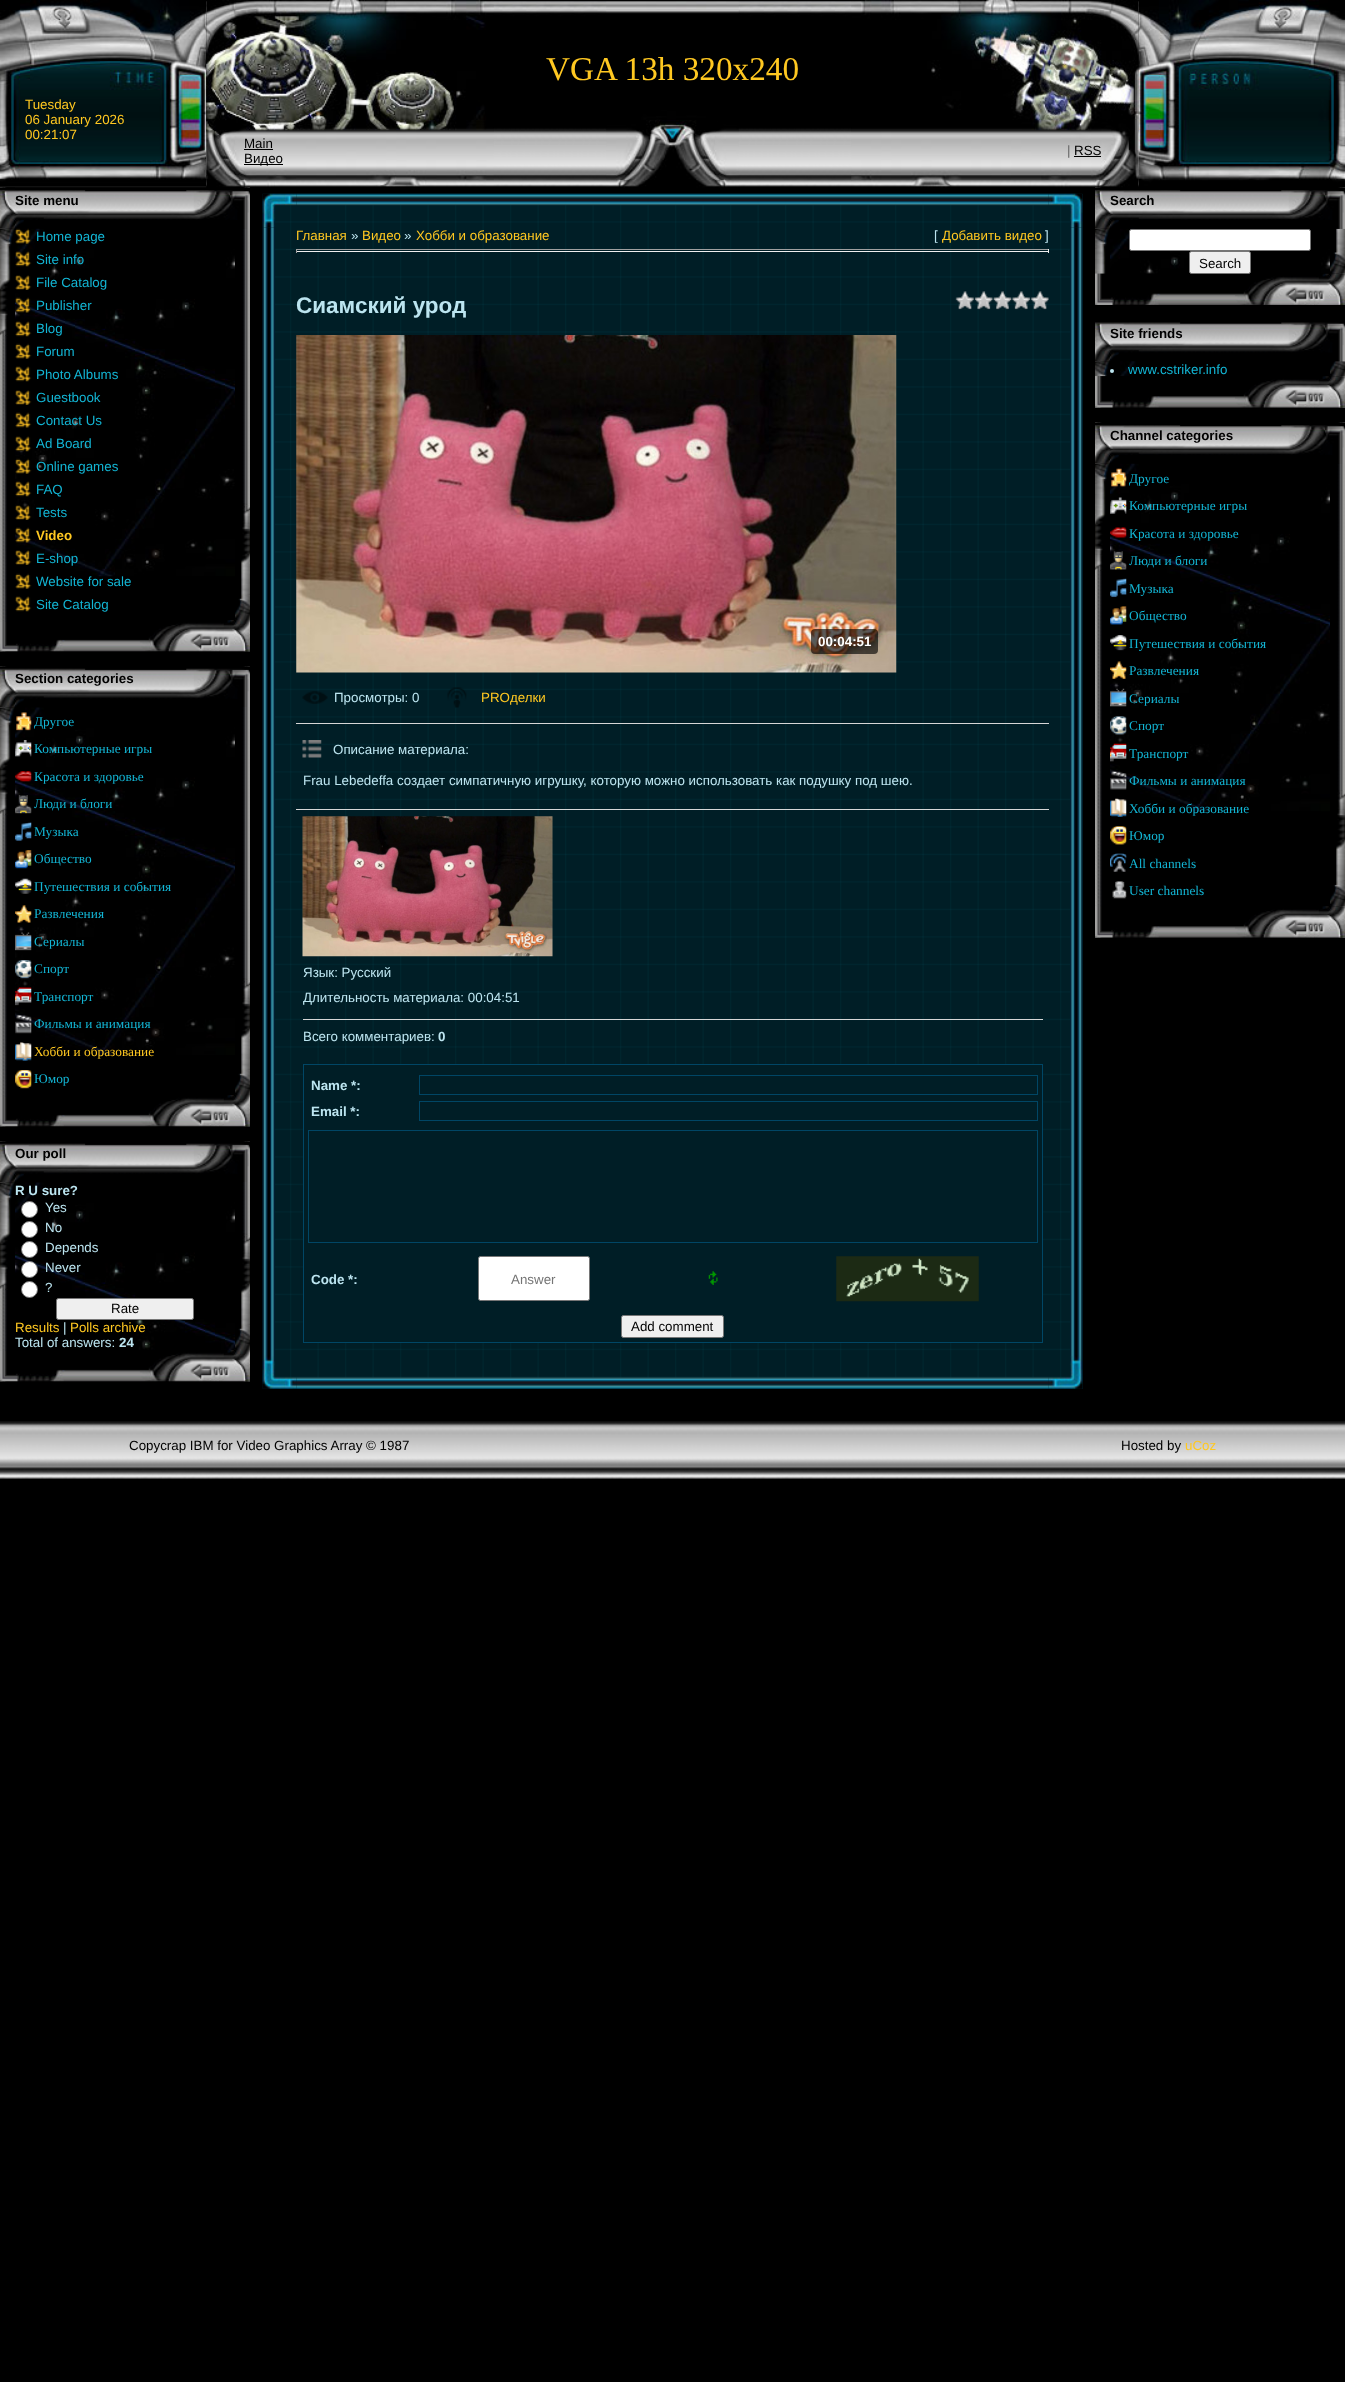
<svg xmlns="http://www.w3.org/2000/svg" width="1345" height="2382">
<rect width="100%" height="100%" fill="#000"/>
<image x="206" y="1" width="933" height="186" href="media/1.png"/>
<image x="606" y="1" width="133" height="187" href="media/2.png"/>
<text x="546" y="80" style="font-family:Liberation Serif;font-size:33.25px;fill:#ffc821">VGA 13h 320x240</text>
<image x="851" y="0" width="288" height="188" href="media/6.png"/>
<image x="1138" y="0" width="207" height="187" href="media/3.png"/>
<image x="0" y="0" width="207" height="188" href="media/4.png"/>
<text x="25" y="109" style="font-family:Liberation Sans;font-size:13.35px;fill:#ffc821">Tuesday</text>
<text x="25" y="124" style="font-family:Liberation Sans;font-size:13.35px;fill:#ffc821">06 January 2026</text>
<text x="25" y="139" style="font-family:Liberation Sans;font-size:13.35px;fill:#ffc821">00:21:07</text>
<image x="206" y="0" width="288" height="187" href="media/5.png"/>
<text x="244" y="148" style="font-family:Liberation Sans;font-size:13.35px;fill:#000">Main</text>
<rect x="244" y="149" width="29" height="1" fill="#000"/>
<rect x="244" y="164" width="39" height="1" fill="#000"/>
<text x="244" y="163" style="font-family:Liberation Sans;font-size:13.35px;fill:#000">Видео</text>
<text x="1067" y="155" style="font-family:Liberation Sans;font-size:13.35px;fill:#666">|</text>
<text x="1074" y="155" style="font-family:Liberation Sans;font-size:13.35px;fill:#000">RSS</text>
<rect x="1074" y="156" width="27" height="1" fill="#000"/>
<image x="0" y="187" width="250" height="465" href="media/7.png"/>
<image x="0" y="228" width="15" height="108" href="media/11.png"/>
<image x="0" y="187" width="15" height="42" href="media/8.png"/>
<image x="15" y="190" width="220" height="38" href="media/9.png"/>
<text x="15" y="205" style="font-family:Liberation Sans;font-size:13.35px;font-weight:bold;fill:#000">Site menu</text>
<image x="235" y="187" width="15" height="42" href="media/10.png"/>
<image x="15" y="228" width="220" height="349" href="media/12.png"/>
<image x="15" y="228" width="17" height="16" href="media/13.png"/>
<text x="36" y="241" style="font-family:Liberation Sans;font-size:13.35px;fill:#12b5d4">Home page</text>
<image x="15" y="251" width="17" height="16" href="media/14.png"/>
<text x="36" y="264" style="font-family:Liberation Sans;font-size:13.35px;fill:#12b5d4">Site info</text>
<image x="15" y="275" width="17" height="15" href="media/15.png"/>
<text x="36" y="287" style="font-family:Liberation Sans;font-size:13.35px;fill:#12b5d4">File Catalog</text>
<image x="15" y="297" width="17" height="16" href="media/16.png"/>
<text x="36" y="310" style="font-family:Liberation Sans;font-size:13.35px;fill:#12b5d4">Publisher</text>
<image x="15" y="321" width="17" height="16" href="media/17.png"/>
<text x="36" y="333" style="font-family:Liberation Sans;font-size:13.35px;fill:#12b5d4">Blog</text>
<image x="15" y="343" width="17" height="16" href="media/18.png"/>
<text x="36" y="356" style="font-family:Liberation Sans;font-size:13.35px;fill:#12b5d4">Forum</text>
<image x="15" y="366" width="17" height="16" href="media/17.png"/>
<text x="36" y="379" style="font-family:Liberation Sans;font-size:13.35px;fill:#12b5d4">Photo Albums</text>
<image x="15" y="390" width="17" height="15" href="media/15.png"/>
<text x="36" y="402" style="font-family:Liberation Sans;font-size:13.35px;fill:#12b5d4">Guestbook</text>
<image x="15" y="412" width="17" height="16" href="media/19.png"/>
<text x="36" y="425" style="font-family:Liberation Sans;font-size:13.35px;fill:#12b5d4">Contact Us</text>
<image x="15" y="436" width="17" height="16" href="media/20.png"/>
<text x="36" y="448" style="font-family:Liberation Sans;font-size:13.35px;fill:#12b5d4">Ad Board</text>
<image x="15" y="458" width="17" height="16" href="media/21.png"/>
<text x="36" y="471" style="font-family:Liberation Sans;font-size:13.35px;fill:#12b5d4">Online games</text>
<image x="15" y="481" width="17" height="16" href="media/22.png"/>
<text x="36" y="494" style="font-family:Liberation Sans;font-size:13.35px;fill:#12b5d4">FAQ</text>
<image x="15" y="505" width="17" height="15" href="media/23.png"/>
<text x="36" y="517" style="font-family:Liberation Sans;font-size:13.35px;fill:#12b5d4">Tests</text>
<image x="15" y="527" width="17" height="16" href="media/24.png"/>
<text x="36" y="540" style="font-family:Liberation Sans;font-size:13.35px;font-weight:bold;fill:#ffc821">Video</text>
<image x="15" y="550" width="17" height="15" href="media/15.png"/>
<text x="36" y="563" style="font-family:Liberation Sans;font-size:13.35px;fill:#12b5d4">E-shop</text>
<image x="15" y="573" width="17" height="16" href="media/18.png"/>
<text x="36" y="586" style="font-family:Liberation Sans;font-size:13.35px;fill:#12b5d4">Website for sale</text>
<image x="15" y="596" width="17" height="16" href="media/17.png"/>
<text x="36" y="609" style="font-family:Liberation Sans;font-size:13.35px;fill:#12b5d4">Site Catalog</text>
<image x="235" y="503" width="15" height="117" href="media/25.png"/>
<image x="0" y="622" width="15" height="30" href="media/26.png"/>
<image x="15" y="620" width="220" height="32" href="media/27.png"/>
<image x="235" y="620" width="15" height="32" href="media/28.png"/>
<image x="0" y="666" width="250" height="461" href="media/29.png"/>
<image x="0" y="707" width="15" height="108" href="media/33.png"/>
<image x="0" y="666" width="15" height="42" href="media/30.png"/>
<image x="15" y="668" width="220" height="39" href="media/31.png"/>
<text x="15" y="683" style="font-family:Liberation Sans;font-size:13.35px;font-weight:bold;fill:#000">Section categories</text>
<image x="235" y="666" width="15" height="41" href="media/32.png"/>
<image x="15" y="707" width="220" height="348" href="media/34.png"/>
<image x="16" y="712" width="16" height="19" href="media/35.png"/>
<text x="34" y="726" style="font-family:Liberation Serif;font-size:13.35px;fill:#12b5d4">Другое</text>
<image x="15" y="740" width="17" height="17" href="media/36.png"/>
<text x="34" y="753" style="font-family:Liberation Serif;font-size:13.35px;fill:#12b5d4">Компьютерные игры</text>
<image x="15" y="771" width="17" height="11" href="media/37.png"/>
<text x="34" y="781" style="font-family:Liberation Serif;font-size:13.35px;fill:#12b5d4">Красота и здоровье</text>
<image x="15" y="795" width="17" height="19" href="media/38.png"/>
<text x="34" y="808" style="font-family:Liberation Serif;font-size:13.35px;fill:#12b5d4">Люди и блоги</text>
<image x="15" y="822" width="17" height="19" href="media/39.png"/>
<text x="34" y="836" style="font-family:Liberation Serif;font-size:13.35px;fill:#12b5d4">Музыка</text>
<image x="15" y="850" width="17" height="19" href="media/40.png"/>
<text x="34" y="863" style="font-family:Liberation Serif;font-size:13.35px;fill:#12b5d4">Общество</text>
<image x="15" y="878" width="17" height="16" href="media/41.png"/>
<text x="34" y="891" style="font-family:Liberation Serif;font-size:13.35px;fill:#12b5d4">Путешествия и события</text>
<image x="15" y="905" width="17" height="18" href="media/42.png"/>
<text x="34" y="918" style="font-family:Liberation Serif;font-size:13.35px;fill:#12b5d4">Развлечения</text>
<image x="15" y="932" width="17" height="19" href="media/43.png"/>
<text x="34" y="946" style="font-family:Liberation Serif;font-size:13.35px;fill:#12b5d4">Сериалы</text>
<image x="15" y="960" width="17" height="19" href="media/44.png"/>
<text x="34" y="973" style="font-family:Liberation Serif;font-size:13.35px;fill:#12b5d4">Спорт</text>
<image x="15" y="987" width="17" height="19" href="media/45.png"/>
<text x="34" y="1001" style="font-family:Liberation Serif;font-size:13.35px;fill:#12b5d4">Транспорт</text>
<image x="15" y="1015" width="17" height="19" href="media/46.png"/>
<text x="34" y="1028" style="font-family:Liberation Serif;font-size:13.35px;fill:#12b5d4">Фильмы и анимация</text>
<image x="15" y="1042" width="17" height="19" href="media/47.png"/>
<text x="34" y="1056" style="font-family:Liberation Serif;font-size:13.35px;fill:#ffc821">Хобби и образование</text>
<image x="15" y="1070" width="17" height="19" href="media/48.png"/>
<text x="34" y="1083" style="font-family:Liberation Serif;font-size:13.35px;fill:#12b5d4">Юмор</text>
<image x="235" y="978" width="15" height="117" href="media/25.png"/>
<image x="0" y="1097" width="15" height="30" href="media/26.png"/>
<image x="15" y="1095" width="220" height="32" href="media/27.png"/>
<image x="235" y="1095" width="15" height="32" href="media/28.png"/>
<image x="0" y="1141" width="250" height="241" href="media/49.png"/>
<image x="0" y="1182" width="15" height="108" href="media/33.png"/>
<image x="0" y="1141" width="15" height="42" href="media/50.png"/>
<image x="15" y="1143" width="220" height="39" href="media/51.png"/>
<text x="15" y="1158" style="font-family:Liberation Sans;font-size:13.35px;font-weight:bold;fill:#000">Our poll</text>
<image x="235" y="1141" width="15" height="41" href="media/32.png"/>
<image x="15" y="1182" width="220" height="168" href="media/52.png"/>
<text x="15" y="1195" style="font-family:Liberation Sans;font-size:13.35px;font-weight:bold;fill:#bce5f0">R U sure?</text>
<circle cx="29.5" cy="1209.5" r="8" fill="#fff" stroke="#767676"/>
<text x="45" y="1212" style="font-family:Liberation Sans;font-size:13.35px;fill:#bce5f0">Yes</text>
<circle cx="29.5" cy="1229.5" r="8" fill="#fff" stroke="#767676"/>
<text x="45" y="1232" style="font-family:Liberation Sans;font-size:13.35px;fill:#bce5f0">No</text>
<circle cx="29.5" cy="1249.5" r="8" fill="#fff" stroke="#767676"/>
<text x="45" y="1252" style="font-family:Liberation Sans;font-size:13.35px;fill:#bce5f0">Depends</text>
<circle cx="29.5" cy="1269.5" r="8" fill="#fff" stroke="#767676"/>
<text x="45" y="1272" style="font-family:Liberation Sans;font-size:13.35px;fill:#bce5f0">Never</text>
<circle cx="29.5" cy="1289.5" r="8" fill="#fff" stroke="#767676"/>
<text x="45" y="1292" style="font-family:Liberation Sans;font-size:13.35px;fill:#bce5f0">?</text>
<rect x="56.5" y="1298.5" width="137" height="21" rx="2" fill="#efefef" stroke="#767676"/>
<text x="111" y="1313" style="font-family:Liberation Sans;font-size:13.35px;fill:#000">Rate</text>
<text x="15" y="1332" style="font-family:Liberation Sans;font-size:13.35px;fill:#ffc821">Results</text>
<text x="63" y="1332" style="font-family:Liberation Sans;font-size:13.35px;fill:#bce5f0">|</text>
<text x="70" y="1332" style="font-family:Liberation Sans;font-size:13.35px;fill:#ffc821">Polls archive</text>
<text x="15" y="1347" style="font-family:Liberation Sans;font-size:13.35px;fill:#bce5f0">Total of answers:</text>
<text x="119" y="1347" style="font-family:Liberation Sans;font-size:13.35px;font-weight:bold;fill:#bce5f0">24</text>
<image x="235" y="1233" width="15" height="117" href="media/25.png"/>
<image x="0" y="1351" width="15" height="31" href="media/53.png"/>
<image x="15" y="1350" width="220" height="32" href="media/27.png"/>
<image x="235" y="1350" width="15" height="32" href="media/54.png"/>
<rect x="263" y="194" width="820" height="1195" fill="#001e26"/>
<image x="262" y="193" width="821" height="1196" href="media/55.png"/>
<image x="296" y="193" width="753" height="13" href="media/57.png"/>
<image x="262" y="227" width="13" height="1128" href="media/59.png"/>
<image x="262" y="193" width="35" height="35" href="media/56.png"/>
<image x="1070" y="227" width="13" height="1128" href="media/68.png"/>
<image x="1048" y="193" width="35" height="35" href="media/58.png"/>
<text x="296" y="240" style="font-family:Liberation Sans;font-size:13.35px;fill:#ffc821">Главная</text>
<text x="351" y="240" style="font-family:Liberation Sans;font-size:13.35px;fill:#bce5f0">»</text>
<text x="362" y="240" style="font-family:Liberation Sans;font-size:13.35px;fill:#ffc821">Видео</text>
<text x="404" y="240" style="font-family:Liberation Sans;font-size:13.35px;fill:#bce5f0">»</text>
<text x="416" y="240" style="font-family:Liberation Sans;font-size:13.35px;fill:#ffc821">Хобби и образование</text>
<text x="934" y="240" style="font-family:Liberation Sans;font-size:13.35px;fill:#bce5f0">[</text>
<text x="942" y="240" style="font-family:Liberation Sans;font-size:13.35px;fill:#ffc821">Добавить видео</text>
<text x="1045" y="240" style="font-family:Liberation Sans;font-size:13.35px;fill:#bce5f0">]</text>
<rect x="296" y="249" width="753" height="1" fill="#9f9f9f"/>
<rect x="1048" y="249" width="1" height="4" fill="#eee"/>
<rect x="296" y="251" width="753" height="1" fill="#eee"/>
<rect x="296" y="249" width="1" height="4" fill="#9f9f9f"/>
<text x="296" y="313" style="font-family:Liberation Sans;font-size:22.5px;font-weight:bold;fill:#bce5f0">Сиамский урод</text>
<image x="955" y="291" width="94" height="19" href="media/60.png"/>
<image x="296" y="335" width="601" height="338" href="media/61.png"/>
<rect x="811" y="629" width="67" height="25" rx="4" fill="#000000a1"/>
<text x="818" y="646" style="font-family:Liberation Sans;font-size:13.35px;font-weight:bold;fill:#fff">00:04:51</text>
<image x="302" y="691" width="26" height="13" href="media/62.png"/>
<text x="334" y="702" style="font-family:Liberation Sans;font-size:13.35px;fill:#bce5f0">Просмотры: 0</text>
<image x="447" y="687" width="20" height="21" href="media/63.png"/>
<text x="481" y="702" style="font-family:Liberation Sans;font-size:13.35px;fill:#ffc821">PROделки</text>
<rect x="296" y="723" width="753" height="1" fill="#d6d6d6"/>
<image x="302" y="740" width="20" height="18" href="media/64.png"/>
<text x="333" y="754" style="font-family:Liberation Sans;font-size:13.35px;fill:#bce5f0">Описание материала:</text>
<text x="303" y="785" style="font-family:Liberation Sans;font-size:13.35px;fill:#bce5f0">Frau Lebedeffa создает симпатичную игрушку, которую можно использовать как подушку под шею.</text>
<rect x="296" y="809" width="753" height="1" fill="#d6d6d6"/>
<image x="302" y="816" width="251" height="141" href="media/65.png"/>
<text x="303" y="977" style="font-family:Liberation Sans;font-size:13.35px;fill:#bce5f0">Язык: Русский</text>
<text x="303" y="1002" style="font-family:Liberation Sans;font-size:13.35px;fill:#bce5f0">Длительность материала: 00:04:51</text>
<rect x="303" y="1019" width="740" height="1" fill="#d6d6d6"/>
<text x="303" y="1041" style="font-family:Liberation Sans;font-size:13.35px;fill:#bce5f0">Всего комментариев:</text>
<text x="438" y="1041" style="font-family:Liberation Sans;font-size:13.35px;font-weight:bold;fill:#bce5f0">0</text>
<rect x="303.5" y="1064.5" width="739" height="278" fill="#001e26" stroke="#004665"/>
<text x="311" y="1090" style="font-family:Liberation Sans;font-size:13.35px;font-weight:bold;fill:#bce5f0">Name *:</text>
<rect x="419.5" y="1075.5" width="618" height="19" fill="none" stroke="#004665"/>
<text x="311" y="1116" style="font-family:Liberation Sans;font-size:13.35px;font-weight:bold;fill:#bce5f0">Email *:</text>
<rect x="419.5" y="1101.5" width="618" height="19" fill="none" stroke="#004665"/>
<rect x="308.5" y="1130.5" width="729" height="112" fill="none" stroke="#004665"/>
<text x="311" y="1284" style="font-family:Liberation Sans;font-size:13.35px;font-weight:bold;fill:#bce5f0">Code *:</text>
<rect x="478.5" y="1256.5" width="111" height="44" rx="2" fill="#fff" stroke="#767676"/>
<text x="511" y="1284" style="font-family:Liberation Sans;font-size:13.35px;fill:#757575">Answer</text>
<image x="708" y="1271" width="10" height="14" href="media/66.png"/>
<image x="836" y="1256" width="143" height="46" href="media/67.png"/>
<rect x="621.5" y="1315.5" width="102" height="22" rx="2" fill="#efefef" stroke="#767676"/>
<text x="631" y="1331" style="font-family:Liberation Sans;font-size:13.35px;fill:#000">Add comment</text>
<image x="296" y="1377" width="753" height="12" href="media/70.png"/>
<image x="262" y="1355" width="35" height="34" href="media/69.png"/>
<image x="1048" y="1355" width="35" height="34" href="media/71.png"/>
<image x="1095" y="187" width="250" height="87" href="media/72.png"/>
<image x="1095" y="228" width="15" height="46" href="media/76.png"/>
<image x="1095" y="187" width="15" height="42" href="media/73.png"/>
<image x="1110" y="190" width="220" height="38" href="media/74.png"/>
<text x="1110" y="205" style="font-family:Liberation Sans;font-size:13.35px;font-weight:bold;fill:#000">Search</text>
<image x="1330" y="228" width="15" height="46" href="media/78.png"/>
<image x="1330" y="187" width="15" height="42" href="media/75.png"/>
<image x="1110" y="228" width="220" height="46" href="media/77.png"/>
<rect x="1129.5" y="229.5" width="181" height="21" rx="2" fill="#fff" stroke="#767676"/>
<image x="1110" y="273" width="220" height="32" href="media/80.png"/>
<rect x="1189.5" y="251.5" width="61" height="22" rx="2" fill="#efefef" stroke="#767676"/>
<text x="1199" y="268" style="font-family:Liberation Sans;font-size:13.35px;fill:#000">Search</text>
<image x="1095" y="273" width="15" height="32" href="media/79.png"/>
<image x="1330" y="273" width="15" height="32" href="media/81.png"/>
<image x="1095" y="320" width="250" height="88" href="media/82.png"/>
<image x="1095" y="361" width="15" height="16" href="media/86.png"/>
<image x="1095" y="320" width="15" height="42" href="media/83.png"/>
<image x="1110" y="322" width="220" height="39" href="media/84.png"/>
<text x="1110" y="338" style="font-family:Liberation Sans;font-size:13.35px;font-weight:bold;fill:#000">Site friends</text>
<image x="1330" y="361" width="15" height="16" href="media/88.png"/>
<image x="1330" y="320" width="15" height="42" href="media/85.png"/>
<image x="1120" y="361" width="16" height="16" href="media/87.png"/>
<circle cx="1112" cy="371" r="2" fill="#bce5f0"/>
<text x="1128" y="374" style="font-family:Liberation Sans;font-size:13.35px;fill:#12b5d4">www.cstriker.info</text>
<image x="1095" y="376" width="15" height="32" href="media/89.png"/>
<image x="1110" y="376" width="220" height="32" href="media/90.png"/>
<image x="1330" y="376" width="15" height="32" href="media/91.png"/>
<image x="1095" y="422" width="250" height="516" href="media/92.png"/>
<image x="1095" y="463" width="15" height="108" href="media/11.png"/>
<image x="1095" y="422" width="15" height="42" href="media/93.png"/>
<image x="1110" y="425" width="220" height="38" href="media/74.png"/>
<text x="1110" y="440" style="font-family:Liberation Sans;font-size:13.35px;font-weight:bold;fill:#000">Channel categories</text>
<image x="1330" y="422" width="15" height="42" href="media/10.png"/>
<image x="1110" y="463" width="220" height="349" href="media/94.png"/>
<image x="1111" y="468" width="16" height="19" href="media/95.png"/>
<text x="1129" y="483" style="font-family:Liberation Serif;font-size:13.35px;fill:#12b5d4">Другое</text>
<image x="1110" y="497" width="17" height="17" href="media/96.png"/>
<text x="1129" y="510" style="font-family:Liberation Serif;font-size:13.35px;fill:#12b5d4">Компьютерные игры</text>
<image x="1110" y="527" width="17" height="11" href="media/97.png"/>
<text x="1129" y="538" style="font-family:Liberation Serif;font-size:13.35px;fill:#12b5d4">Красота и здоровье</text>
<image x="1110" y="551" width="17" height="19" href="media/98.png"/>
<text x="1129" y="565" style="font-family:Liberation Serif;font-size:13.35px;fill:#12b5d4">Люди и блоги</text>
<image x="1110" y="578" width="17" height="20" href="media/99.png"/>
<text x="1129" y="593" style="font-family:Liberation Serif;font-size:13.35px;fill:#12b5d4">Музыка</text>
<image x="1110" y="606" width="17" height="19" href="media/100.png"/>
<text x="1129" y="620" style="font-family:Liberation Serif;font-size:13.35px;fill:#12b5d4">Общество</text>
<image x="1110" y="635" width="17" height="16" href="media/101.png"/>
<text x="1129" y="648" style="font-family:Liberation Serif;font-size:13.35px;fill:#12b5d4">Путешествия и события</text>
<image x="1110" y="661" width="17" height="18" href="media/102.png"/>
<text x="1129" y="675" style="font-family:Liberation Serif;font-size:13.35px;fill:#12b5d4">Развлечения</text>
<image x="1110" y="688" width="17" height="19" href="media/103.png"/>
<text x="1129" y="703" style="font-family:Liberation Serif;font-size:13.35px;fill:#12b5d4">Сериалы</text>
<image x="1110" y="716" width="17" height="19" href="media/104.png"/>
<text x="1129" y="730" style="font-family:Liberation Serif;font-size:13.35px;fill:#12b5d4">Спорт</text>
<image x="1110" y="743" width="17" height="19" href="media/105.png"/>
<text x="1129" y="758" style="font-family:Liberation Serif;font-size:13.35px;fill:#12b5d4">Транспорт</text>
<image x="1110" y="771" width="17" height="19" href="media/106.png"/>
<text x="1129" y="785" style="font-family:Liberation Serif;font-size:13.35px;fill:#12b5d4">Фильмы и анимация</text>
<image x="1110" y="798" width="17" height="19" href="media/107.png"/>
<text x="1129" y="813" style="font-family:Liberation Serif;font-size:13.35px;fill:#12b5d4">Хобби и образование</text>
<image x="1110" y="826" width="17" height="19" href="media/108.png"/>
<text x="1129" y="840" style="font-family:Liberation Serif;font-size:13.35px;fill:#12b5d4">Юмор</text>
<image x="1110" y="853" width="17" height="19" href="media/109.png"/>
<text x="1129" y="868" style="font-family:Liberation Serif;font-size:13.35px;fill:#12b5d4">All channels</text>
<image x="1112" y="881" width="15" height="18" href="media/110.png"/>
<text x="1129" y="895" style="font-family:Liberation Serif;font-size:13.35px;fill:#12b5d4">User channels</text>
<image x="1330" y="790" width="15" height="117" href="media/111.png"/>
<image x="1095" y="906" width="15" height="32" href="media/112.png"/>
<image x="1110" y="906" width="220" height="32" href="media/113.png"/>
<image x="1330" y="906" width="15" height="32" href="media/91.png"/>
<image x="0" y="1421" width="1345" height="58" href="media/114.png"/>
<text x="129" y="1450" style="font-family:Liberation Sans;font-size:13.35px;fill:#000">Copycrap IBM for Video Graphics Array © 1987</text>
<text x="1121" y="1450" style="font-family:Liberation Sans;font-size:13.35px;fill:#000">Hosted by</text>
<text x="1185" y="1450" style="font-family:Liberation Sans;font-size:13.35px;fill:#ffc821">uCoz</text>
</svg>
